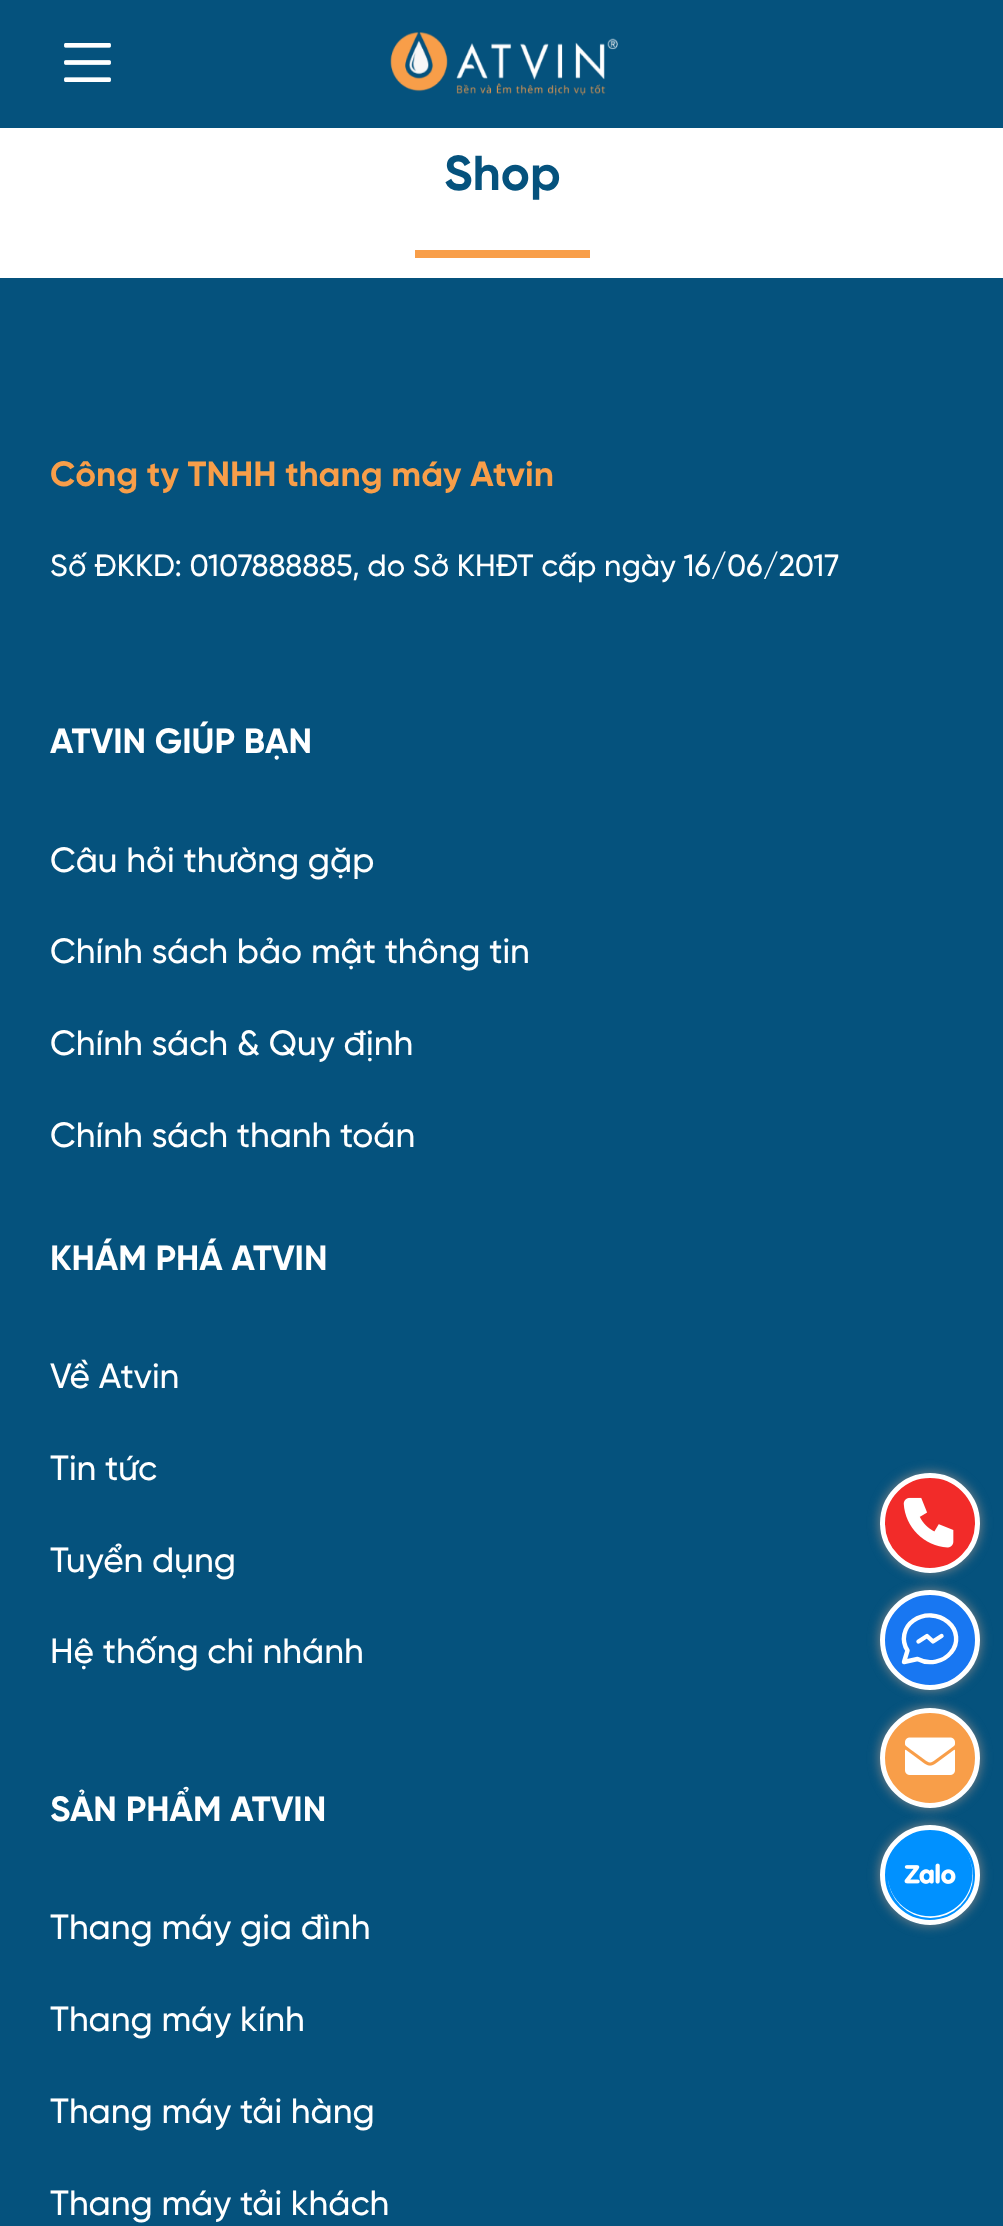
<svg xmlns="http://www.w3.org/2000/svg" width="1003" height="2226">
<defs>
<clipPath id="clip1"><path d="M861 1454h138v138h-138zm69 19c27.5 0 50 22.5 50 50c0 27.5-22.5 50-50 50c-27.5 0-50-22.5-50-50c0-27.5 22.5-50 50-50z" clip-rule="evenodd"/></clipPath>
<clipPath id="clip2"><path d="M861 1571h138v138h-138zm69 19c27.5 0 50 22.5 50 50c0 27.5-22.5 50-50 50c-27.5 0-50-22.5-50-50c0-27.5 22.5-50 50-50z" clip-rule="evenodd"/></clipPath>
<clipPath id="clip3"><path d="M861 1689h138v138h-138zm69 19c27.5 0 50 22.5 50 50c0 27.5-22.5 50-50 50c-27.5 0-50-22.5-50-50c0-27.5 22.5-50 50-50z" clip-rule="evenodd"/></clipPath>
<clipPath id="clip4"><path d="M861 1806h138v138h-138zm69 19c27.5 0 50 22.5 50 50c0 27.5-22.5 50-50 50c-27.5 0-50-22.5-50-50c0-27.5 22.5-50 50-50z" clip-rule="evenodd"/></clipPath>
</defs>
<rect width="100%" height="100%" fill="#fff"/>
<rect width="1003" height="128" fill="#05527d"/>
<image x="64" y="43" width="47" height="39" href="media/1.png"/>
<image x="390" y="32" width="228" height="64" href="media/2.png"/>
<text x="444" y="190" style="font-family:Gilroy;font-size:49px;font-weight:bold;fill:#05527d">Shop</text>
<rect x="415" y="250" width="175" height="8" fill="#f89e49"/>
<rect y="278" width="1003" height="1948" fill="#05527d"/>
<text x="50" y="486" style="font-family:Gilroy;font-size:35px;font-weight:bold;fill:#f89e49">Công ty TNHH thang máy Atvin</text>
<text x="50" y="576" style="font-family:Gilroy;font-size:30.6px;font-weight:500;fill:#fff">Số ĐKKD: 0107888885, do Sở KHĐT cấp ngày 16/06/2017</text>
<text x="50" y="753" style="font-family:Gilroy;font-size:35px;font-weight:bold;fill:#fff">ATVIN GIÚP BẠN</text>
<text x="50" y="872" style="font-family:Gilroy;font-size:35px;font-weight:500;fill:#fff">Câu hỏi thường gặp</text>
<text x="50" y="963" style="font-family:Gilroy;font-size:35px;font-weight:500;fill:#fff">Chính sách bảo mật thông tin</text>
<text x="50" y="1055" style="font-family:Gilroy;font-size:35px;font-weight:500;fill:#fff">Chính sách &amp; Quy định</text>
<text x="50" y="1147" style="font-family:Gilroy;font-size:35px;font-weight:500;fill:#fff">Chính sách thanh toán</text>
<text x="50" y="1270" style="font-family:Gilroy;font-size:35px;font-weight:bold;fill:#fff">KHÁM PHÁ ATVIN</text>
<text x="50" y="1388" style="font-family:Gilroy;font-size:35px;font-weight:500;fill:#fff">Về Atvin</text>
<text x="50" y="1480" style="font-family:Gilroy;font-size:35px;font-weight:500;fill:#fff">Tin tức</text>
<text x="50" y="1572" style="font-family:Gilroy;font-size:35px;font-weight:500;fill:#fff">Tuyển dụng</text>
<text x="50" y="1663" style="font-family:Gilroy;font-size:35px;font-weight:500;fill:#fff">Hệ thống chi nhánh</text>
<text x="50" y="1821" style="font-family:Gilroy;font-size:35px;font-weight:bold;fill:#fff">SẢN PHẨM ATVIN</text>
<text x="50" y="1939" style="font-family:Gilroy;font-size:35px;font-weight:500;fill:#fff">Thang máy gia đình</text>
<text x="50" y="2031" style="font-family:Gilroy;font-size:35px;font-weight:500;fill:#fff">Thang máy kính</text>
<text x="50" y="2123" style="font-family:Gilroy;font-size:35px;font-weight:500;fill:#fff">Thang máy tải hàng</text>
<text x="50" y="2215" style="font-family:Gilroy;font-size:35px;font-weight:500;fill:#fff">Thang máy tải khách</text>
<g clip-path="url(#clip1)">
<rect x="880" y="1473" width="100" height="100" rx="50" fill="#888" filter="blur(6px)"/>
</g>
<circle cx="930" cy="1523" r="47.5" fill="#f22b29" stroke="#fff" stroke-width="5"/>
<image x="903" y="1497" width="51" height="51" href="media/3.png"/>
<g clip-path="url(#clip2)">
<rect x="880" y="1590" width="100" height="100" rx="50" fill="#888" filter="blur(6px)"/>
</g>
<circle cx="930" cy="1640" r="47.5" fill="#1877f2" stroke="#fff" stroke-width="5"/>
<path d="M904 1662l3.5-11.5c-6.5-10-4-23 6-30c10.5-7.5 25-6.5 34.5 1.5c9.5 8 11 21 3 30.5c-7.5 9.5-22 12.5-33.5 6.5l-13.5 3m14.5-20.5l8.5-5.5l6 5.5l8.5-5.5" fill="none" stroke="#fff" stroke-width="4.4" stroke-linecap="round" stroke-linejoin="round"/>
<g clip-path="url(#clip3)">
<rect x="880" y="1708" width="100" height="100" rx="50" fill="#888" filter="blur(6px)"/>
</g>
<circle cx="930" cy="1758" r="47.5" fill="#f89e49" stroke="#fff" stroke-width="5"/>
<image x="905" y="1737" width="50" height="38" href="media/4.png"/>
<g clip-path="url(#clip4)">
<rect x="880" y="1825" width="100" height="100" rx="50" fill="#888" filter="blur(6px)"/>
</g>
<circle cx="930" cy="1875" r="47.5" fill="#0091ff" stroke="#fff" stroke-width="5"/>
<circle cx="930.5" cy="1875.5" r="42.5" fill="#fff"/>
<image x="888" y="1833" width="85" height="84" href="media/5.png"/>
</svg>
